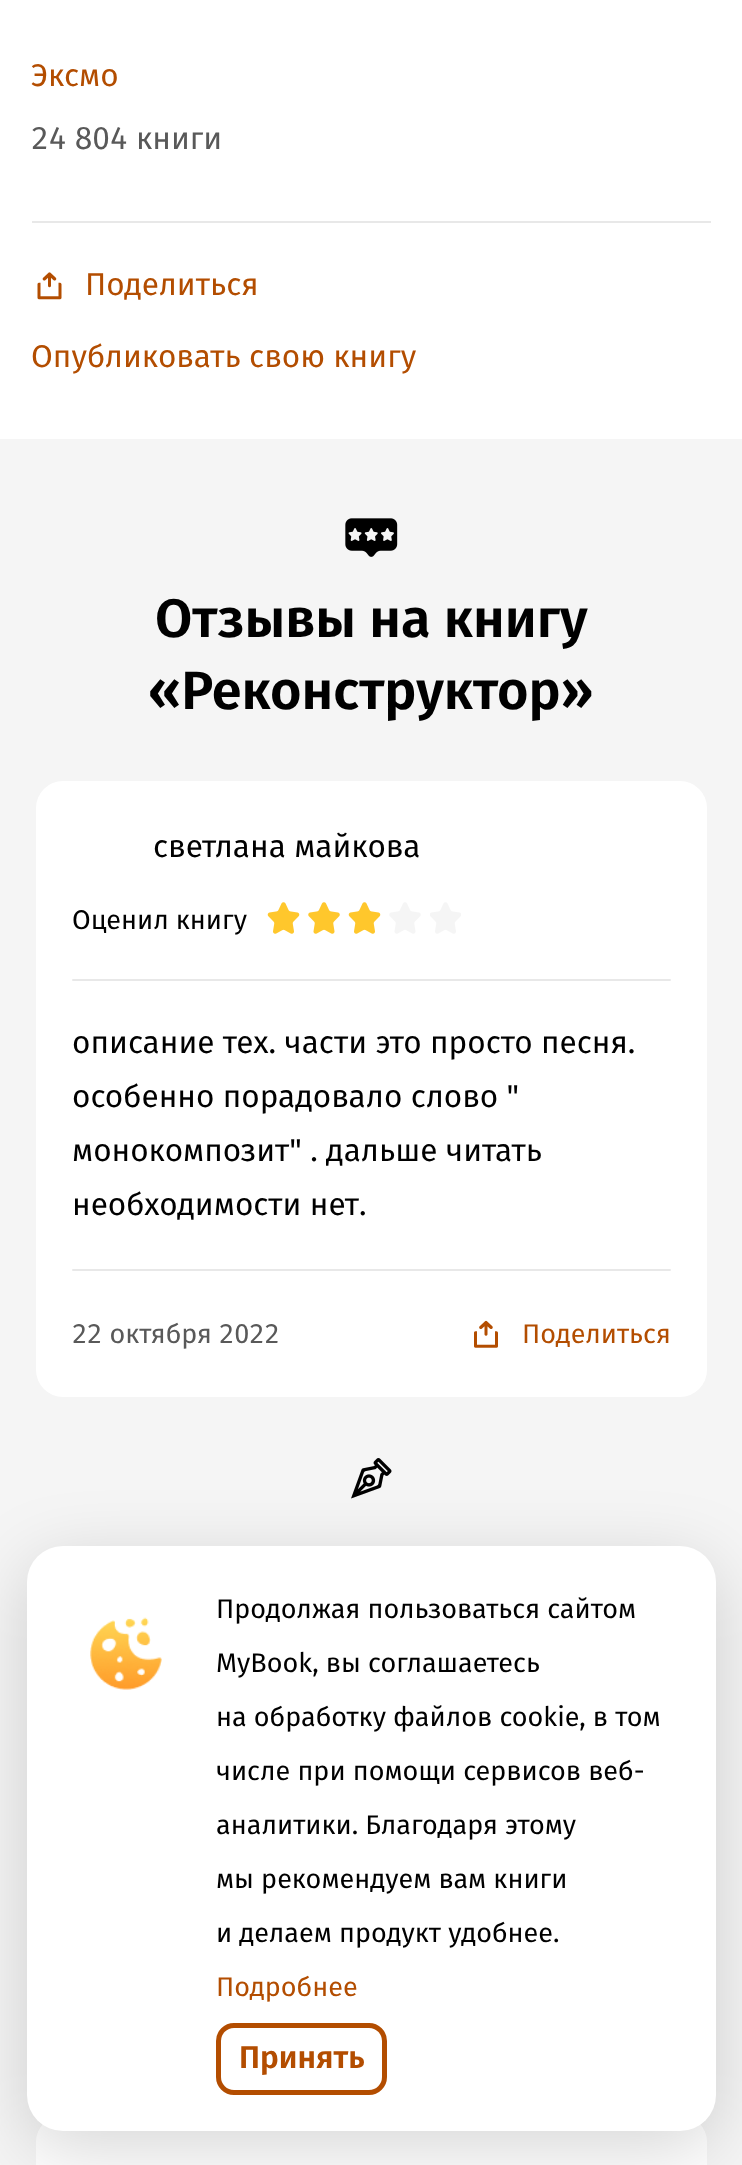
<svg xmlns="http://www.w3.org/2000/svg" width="742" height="2165">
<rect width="100%" height="100%" fill="#f5f5f5"/>
<rect width="742" height="439" fill="#fff"/>
<text x="31" y="86" style="font-family:Fira Sans;font-size:31.5px;fill:#b34d00">Эксмо</text>
<rect x="32" y="221" width="679" height="2" fill="#e8e8e8"/>
<text x="31" y="149" style="font-family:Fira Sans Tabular;font-size:31.5px;fill:#595959">24 804 книги</text>
<image x="37" y="272" width="25" height="28" href="media/1.png"/>
<text x="85" y="295" style="font-family:Fira Sans;font-size:31.5px;fill:#b34d00">Поделиться</text>
<text x="31" y="367" style="font-family:Fira Sans;font-size:31.5px;fill:#b34d00">Опубликовать свою книгу</text>
<image x="345" y="518" width="53" height="39" href="media/2.png"/>
<text x="155" y="637" style="font-family:Fira Sans;font-size:54px;font-weight:600;fill:#000">Отзывы на книгу</text>
<text x="148" y="709" style="font-family:Fira Sans;font-size:54px;font-weight:600;fill:#000">«Реконструктор»</text>
<rect x="36" y="781" width="671" height="616" rx="27" fill="#fff"/>
<text x="153" y="857" style="font-family:Fira Sans;font-size:31.5px;fill:#000">светлана майкова</text>
<text x="72" y="929" style="font-family:Fira Sans;font-size:27px;fill:#000">Оценил книгу</text>
<image x="267" y="902" width="33" height="32" href="media/3.png"/>
<image x="308" y="902" width="32" height="32" href="media/4.png"/>
<image x="348" y="902" width="33" height="32" href="media/3.png"/>
<image x="389" y="902" width="32" height="32" href="media/5.png"/>
<image x="430" y="902" width="31" height="32" href="media/6.png"/>
<rect x="72" y="979" width="599" height="2" rx="1" fill="#e8e8e8"/>
<text x="72" y="1053" style="font-family:Fira Sans;font-size:31.5px;fill:#000">описание тех. части это просто песня.</text>
<text x="72" y="1107" style="font-family:Fira Sans;font-size:31.5px;fill:#000">особенно порадовало слово "</text>
<text x="72" y="1161" style="font-family:Fira Sans;font-size:31.5px;fill:#000">монокомпозит" . дальше читать</text>
<text x="72" y="1215" style="font-family:Fira Sans;font-size:31.5px;fill:#000">необходимости нет.</text>
<rect x="72" y="1269" width="599" height="2" rx="1" fill="#e8e8e8"/>
<text x="72" y="1343" style="font-family:Fira Sans Tabular;font-size:27px;fill:#595959">22 октября 2022</text>
<image x="474" y="1320" width="24" height="28" href="media/7.png"/>
<text x="522" y="1343" style="font-family:Fira Sans;font-size:27px;fill:#b34d00">Поделиться</text>
<image x="351" y="1458" width="41" height="41" href="media/8.png"/>
<rect x="36" y="2115" width="671" height="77" rx="27" fill="#fff"/>
<rect x="27" y="1564" width="689" height="585" rx="36" fill="#00000029" filter="blur(36px)"/>
<rect x="27" y="1546" width="689" height="585" rx="36" fill="#fff"/>
<image x="90" y="1617" width="72" height="73" href="media/9.png"/>
<text x="216" y="1618" style="font-family:Fira Sans;font-size:27px;fill:#000">Продолжая пользоваться сайтом</text>
<text x="216" y="1672" style="font-family:Fira Sans;font-size:27px;fill:#000">MyBook, вы соглашаетесь</text>
<text x="216" y="1726" style="font-family:Fira Sans;font-size:27px;fill:#000">на обработку файлов cookie, в том</text>
<text x="216" y="1780" style="font-family:Fira Sans;font-size:27px;fill:#000">числе при помощи сервисов веб-</text>
<text x="216" y="1834" style="font-family:Fira Sans;font-size:27px;fill:#000">аналитики. Благодаря этому</text>
<text x="216" y="1888" style="font-family:Fira Sans;font-size:27px;fill:#000">мы рекомендуем вам книги</text>
<text x="216" y="1942" style="font-family:Fira Sans;font-size:27px;fill:#000">и делаем продукт удобнее.</text>
<text x="216" y="1996" style="font-family:Fira Sans;font-size:27px;fill:#b34d00">Подробнее</text>
<rect x="218.5" y="2025.5" width="166" height="67" rx="15.5" fill="none" stroke="#b34d00" stroke-width="5"/>
<text x="239" y="2068" style="font-family:Fira Sans;font-size:31.5px;font-weight:600;fill:#b34d00">Принять</text>
</svg>
